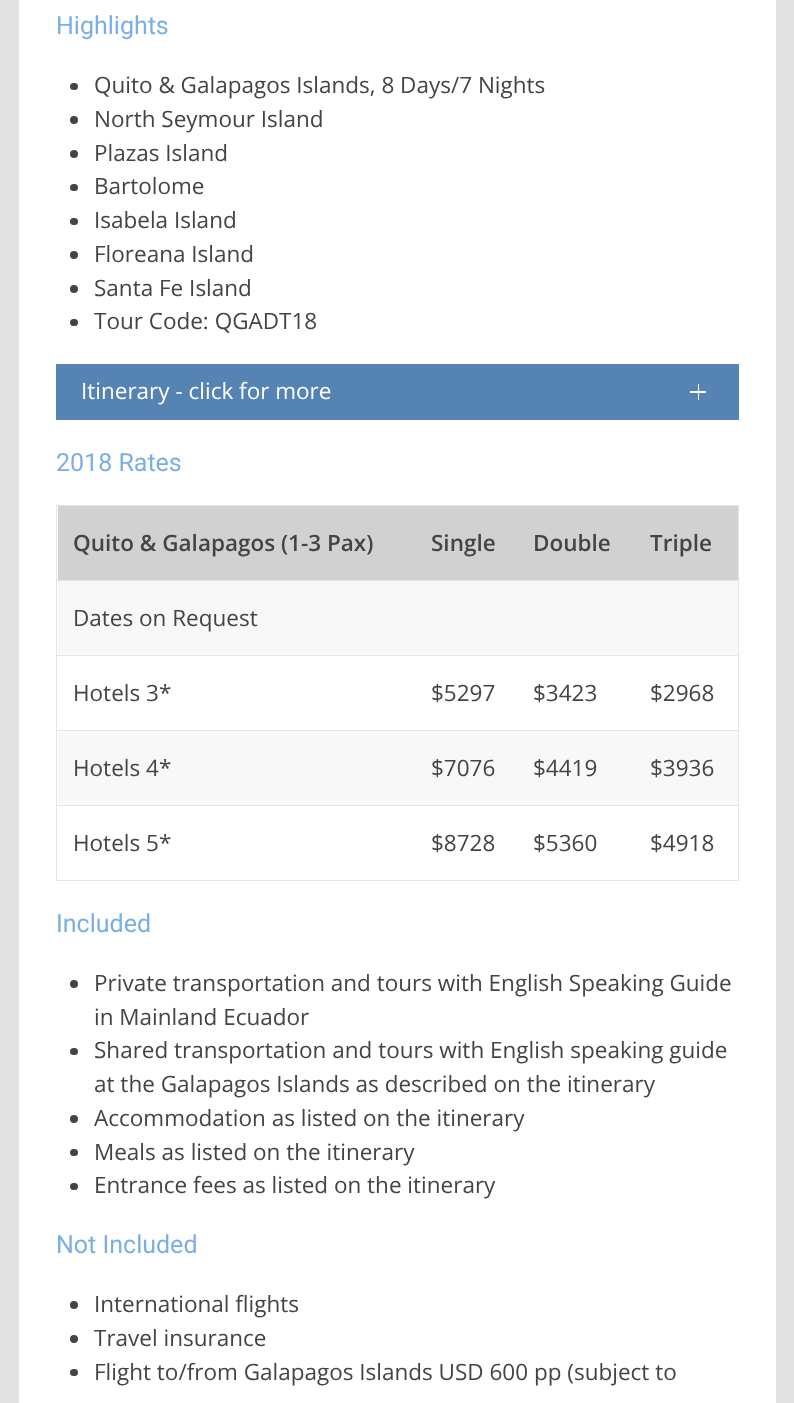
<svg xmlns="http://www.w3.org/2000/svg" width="794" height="1403">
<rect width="100%" height="100%" fill="#e1e1e1"/>
<rect x="19" width="757" height="1403" fill="#fff"/>
<text x="56" y="34" style="font-family:Roboto;font-size:25px;fill:#7baee6">Highlights</text>
<rect x="70" y="83" width="8" height="7" rx="3.5" fill="#444"/>
<text x="94" y="93" style="font-family:Open Sans;font-size:22.5px;fill:#444">Quito &amp; Galapagos Islands, 8 Days/7 Nights</text>
<circle cx="74" cy="120" r="4" fill="#444"/>
<text x="94" y="127" style="font-family:Open Sans;font-size:22.5px;fill:#444">North Seymour Island</text>
<circle cx="74" cy="154" r="4" fill="#444"/>
<text x="94" y="161" style="font-family:Open Sans;font-size:22.5px;fill:#444">Plazas Island</text>
<rect x="70" y="184" width="8" height="7" rx="3.5" fill="#444"/>
<text x="94" y="194" style="font-family:Open Sans;font-size:22.5px;fill:#444">Bartolome</text>
<rect x="70" y="218" width="8" height="7" rx="3.5" fill="#444"/>
<text x="94" y="228" style="font-family:Open Sans;font-size:22.5px;fill:#444">Isabela Island</text>
<circle cx="74" cy="255" r="4" fill="#444"/>
<text x="94" y="262" style="font-family:Open Sans;font-size:22.5px;fill:#444">Floreana Island</text>
<circle cx="74" cy="289" r="4" fill="#444"/>
<text x="94" y="296" style="font-family:Open Sans;font-size:22.5px;fill:#444">Santa Fe Island</text>
<rect x="70" y="319" width="8" height="7" rx="3.5" fill="#444"/>
<text x="94" y="329" style="font-family:Open Sans;font-size:22.5px;fill:#444">Tour Code: QGADT18</text>
<rect x="56" y="364" width="683" height="56" fill="#5583b4"/>
<text x="81" y="399" style="font-family:Open Sans;font-size:22.5px;fill:#fff">Itinerary - click for more</text>
<rect x="690" y="391" width="16" height="2" fill="#fff"/>
<rect x="698" y="384" width="1" height="16" fill="#fff"/>
<text x="56" y="471" style="font-family:Roboto;font-size:25px;fill:#7baee6">2018 Rates</text>
<rect x="56" y="505" width="683" height="1" fill="#e5e5e5"/>
<rect x="738" y="505" width="1" height="376" fill="#e5e5e5"/>
<rect x="56" y="880" width="683" height="1" fill="#e5e5e5"/>
<rect x="56" y="505" width="1" height="376" fill="#e5e5e5"/>
<rect x="58" y="506" width="680" height="74" fill="#d1d1d1"/>
<text x="73" y="551" style="font-family:Open Sans;font-size:22.5px;font-weight:600;fill:#444">Quito &amp; Galapagos (1-3 Pax)</text>
<text x="431" y="551" style="font-family:Open Sans;font-size:22.5px;font-weight:600;fill:#444">Single</text>
<text x="533" y="551" style="font-family:Open Sans;font-size:22.5px;font-weight:600;fill:#444">Double</text>
<text x="650" y="551" style="font-family:Open Sans;font-size:22.5px;font-weight:600;fill:#444">Triple</text>
<rect x="58" y="581" width="680" height="74" fill="#f8f8f8"/>
<rect x="56" y="580" width="683" height="1" fill="#e5e5e5"/>
<rect x="56" y="655" width="683" height="1" fill="#e5e5e5"/>
<text x="73" y="626" style="font-family:Open Sans;font-size:22.5px;fill:#444">Dates on Request</text>
<text x="73" y="701" style="font-family:Open Sans;font-size:22.5px;fill:#444">Hotels 3*</text>
<text x="431" y="701" style="font-family:Open Sans;font-size:22.5px;fill:#444">$5297</text>
<text x="533" y="701" style="font-family:Open Sans;font-size:22.5px;fill:#444">$3423</text>
<text x="650" y="701" style="font-family:Open Sans;font-size:22.5px;fill:#444">$2968</text>
<rect x="58" y="731" width="680" height="74" fill="#f8f8f8"/>
<rect x="56" y="730" width="683" height="1" fill="#e5e5e5"/>
<rect x="56" y="805" width="683" height="1" fill="#e5e5e5"/>
<text x="73" y="776" style="font-family:Open Sans;font-size:22.5px;fill:#444">Hotels 4*</text>
<text x="431" y="776" style="font-family:Open Sans;font-size:22.5px;fill:#444">$7076</text>
<text x="533" y="776" style="font-family:Open Sans;font-size:22.5px;fill:#444">$4419</text>
<text x="650" y="776" style="font-family:Open Sans;font-size:22.5px;fill:#444">$3936</text>
<text x="73" y="851" style="font-family:Open Sans;font-size:22.5px;fill:#444">Hotels 5*</text>
<text x="431" y="851" style="font-family:Open Sans;font-size:22.5px;fill:#444">$8728</text>
<text x="533" y="851" style="font-family:Open Sans;font-size:22.5px;fill:#444">$5360</text>
<text x="650" y="851" style="font-family:Open Sans;font-size:22.5px;fill:#444">$4918</text>
<text x="56" y="932" style="font-family:Roboto;font-size:25px;fill:#7baee6">Included</text>
<circle cx="74" cy="984" r="4" fill="#444"/>
<text x="94" y="991" style="font-family:Open Sans;font-size:22.5px;fill:#444">Private transportation and tours with English Speaking Guide</text>
<text x="94" y="1025" style="font-family:Open Sans;font-size:22.5px;fill:#444">in Mainland Ecuador</text>
<rect x="70" y="1048" width="8" height="7" rx="3.5" fill="#444"/>
<text x="94" y="1058" style="font-family:Open Sans;font-size:22.5px;fill:#444">Shared transportation and tours with English speaking guide</text>
<text x="94" y="1092" style="font-family:Open Sans;font-size:22.5px;fill:#444">at the Galapagos Islands as described on the itinerary</text>
<circle cx="74" cy="1119" r="4" fill="#444"/>
<text x="94" y="1126" style="font-family:Open Sans;font-size:22.5px;fill:#444">Accommodation as listed on the itinerary</text>
<rect x="70" y="1149" width="8" height="7" rx="3.5" fill="#444"/>
<text x="94" y="1160" style="font-family:Open Sans;font-size:22.5px;fill:#444">Meals as listed on the itinerary</text>
<rect x="70" y="1183" width="8" height="7" rx="3.5" fill="#444"/>
<text x="94" y="1193" style="font-family:Open Sans;font-size:22.5px;fill:#444">Entrance fees as listed on the itinerary</text>
<text x="56" y="1253" style="font-family:Roboto;font-size:25px;fill:#7baee6">Not Included</text>
<circle cx="74" cy="1305" r="4" fill="#444"/>
<text x="94" y="1312" style="font-family:Open Sans;font-size:22.5px;fill:#444">International flights</text>
<circle cx="74" cy="1339" r="4" fill="#444"/>
<text x="94" y="1346" style="font-family:Open Sans;font-size:22.5px;fill:#444">Travel insurance</text>
<rect x="70" y="1369" width="8" height="7" rx="3.5" fill="#444"/>
<text x="94" y="1380" style="font-family:Open Sans;font-size:22.5px;fill:#444">Flight to/from Galapagos Islands USD 600 pp (subject to</text>
</svg>
